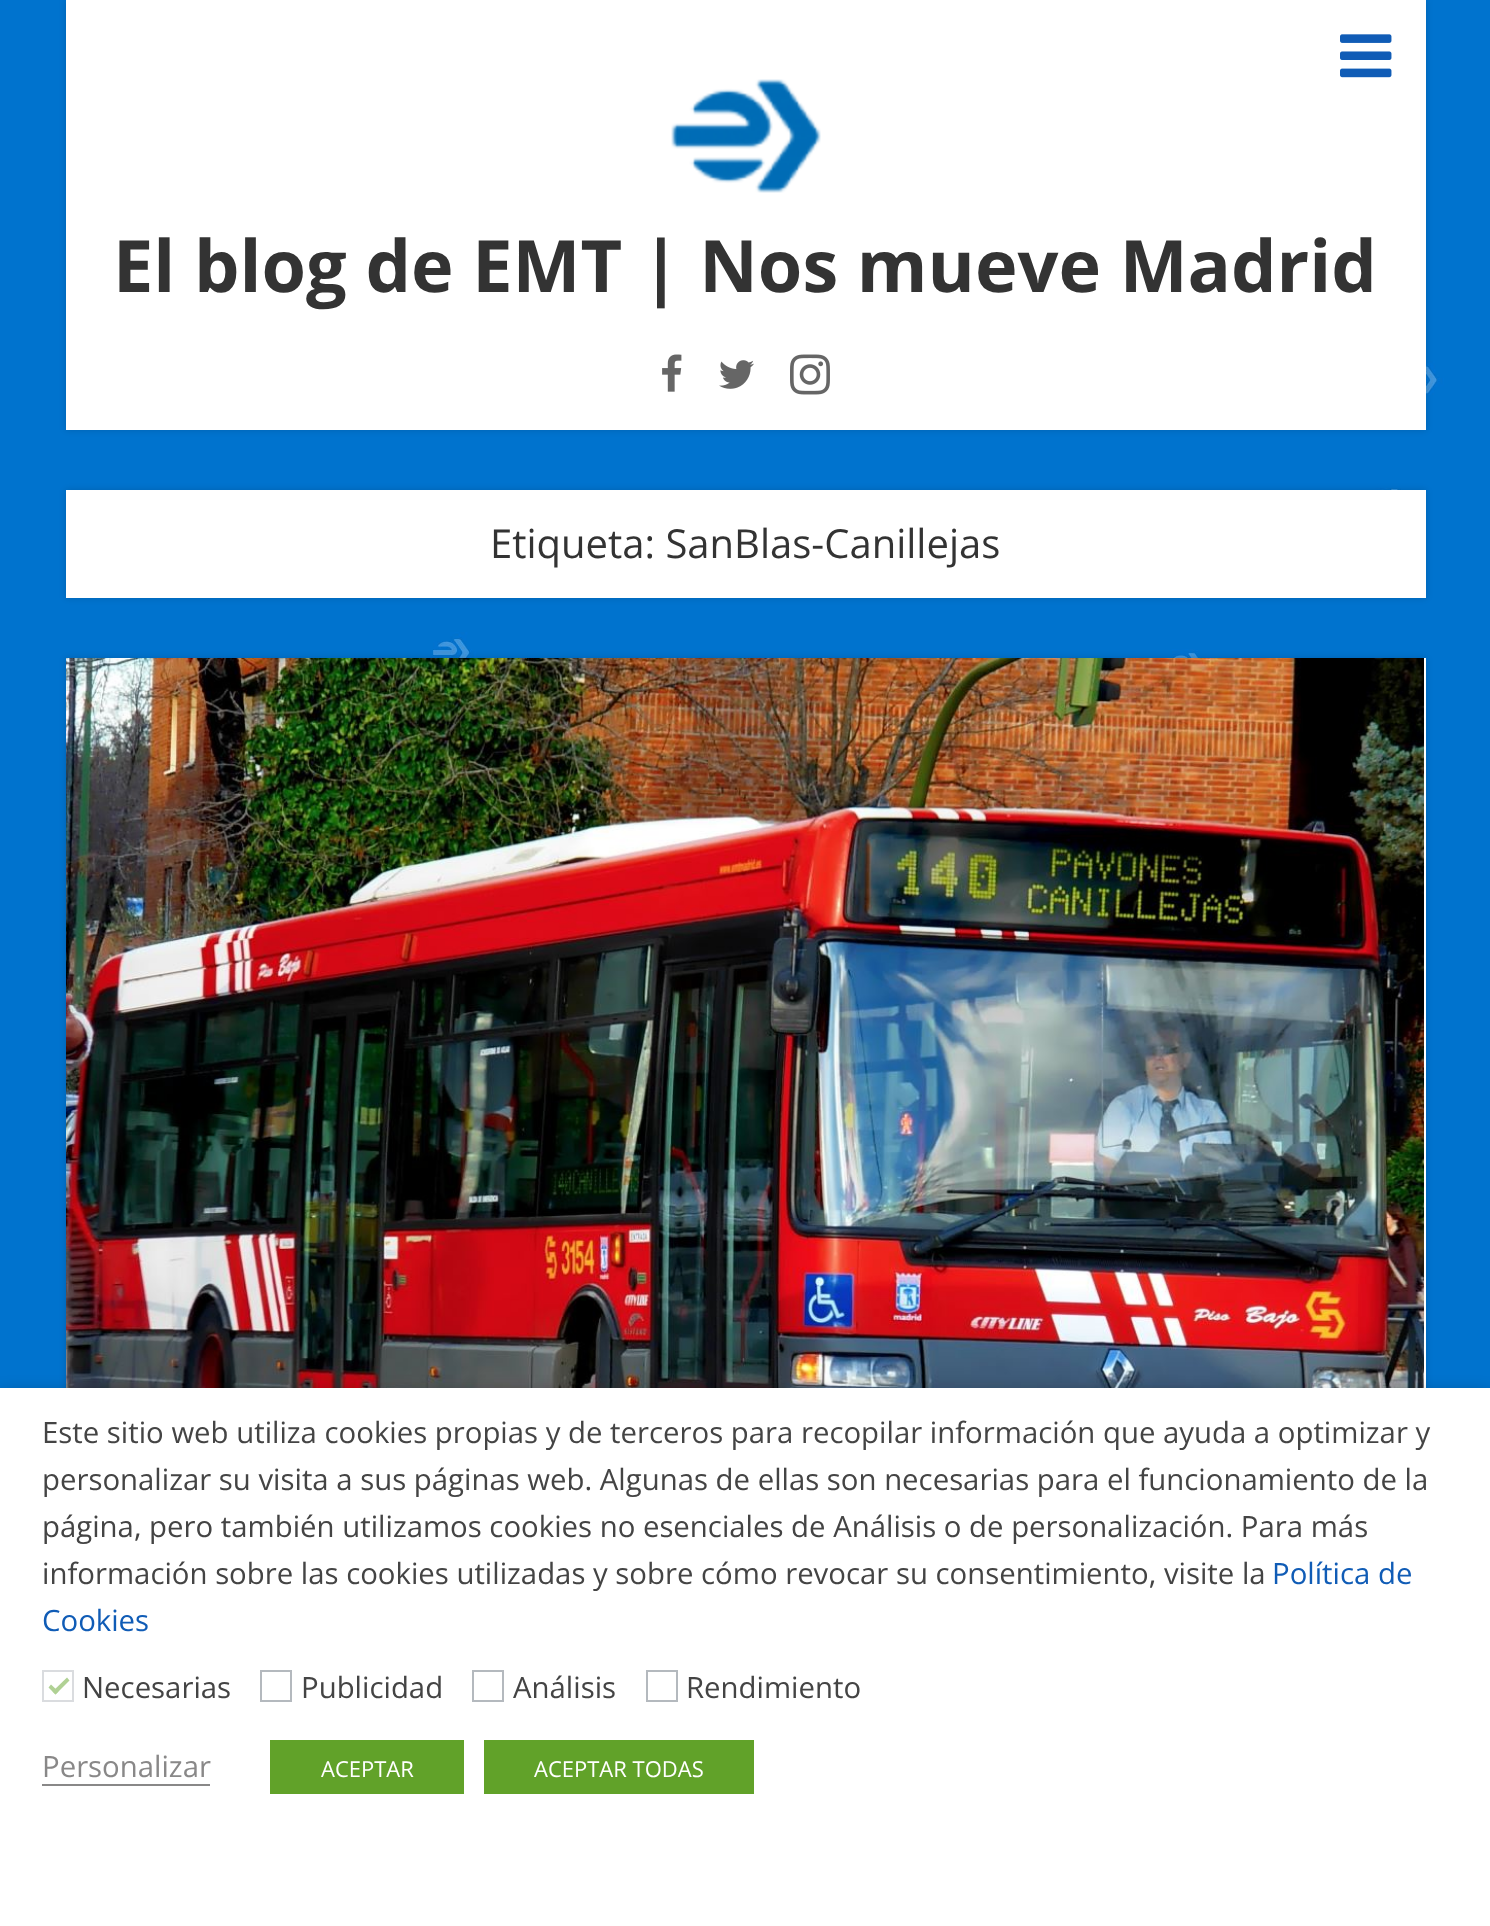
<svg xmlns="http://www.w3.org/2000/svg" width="1490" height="1926">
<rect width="100%" height="100%" fill="#fff"/>
<image x="0" y="0" width="1490" height="1388" href="media/1.png"/>
<rect x="66" width="1360" height="430" fill="#00000026" filter="blur(3px)"/>
<rect x="66" width="1360" height="430" fill="#fff"/>
<image x="1340" y="34" width="52" height="44" href="media/2.png"/>
<image x="662" y="354" width="20" height="38" href="media/3.png"/>
<image x="719" y="360" width="35" height="29" href="media/4.png"/>
<image x="790" y="354" width="40" height="41" href="media/5.png"/>
<image x="671" y="79" width="150" height="114" href="media/6.png"/>
<text x="113" y="292" style="font-family:Open Sans;font-size:72px;font-weight:bold;fill:#333">El blog de EMT | Nos mueve Madrid</text>
<rect x="66" y="490" width="1360" height="108" fill="#00000026" filter="blur(3px)"/>
<rect x="66" y="490" width="1360" height="108" fill="#fff"/>
<text x="490" y="558" style="font-family:Open Sans;font-size:40px;fill:#333">Etiqueta: SanBlas-Canillejas</text>
<rect x="66" y="658" width="1360" height="1266" fill="#00000026" filter="blur(3px)"/>
<rect x="1424" y="658" width="2" height="730" fill="#fff"/>
<image x="66" y="658" width="1358" height="730" href="media/7.png"/>
<rect y="1398" width="1490" height="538" fill="#00000080" filter="blur(10px)"/>
<rect y="1388" width="1490" height="538" fill="#fff"/>
<text x="42" y="1443" style="font-family:Open Sans;font-size:29.35px;fill:#444">Este sitio web utiliza cookies propias y de terceros para recopilar información que ayuda a optimizar y</text>
<text x="42" y="1490" style="font-family:Open Sans;font-size:29.35px;fill:#444">personalizar su visita a sus páginas web. Algunas de ellas son necesarias para el funcionamiento de la</text>
<text x="42" y="1537" style="font-family:Open Sans;font-size:29.35px;fill:#444">página, pero también utilizamos cookies no esenciales de Análisis o de personalización. Para más</text>
<text x="42" y="1584" style="font-family:Open Sans;font-size:29.35px;fill:#444">información sobre las cookies utilizadas y sobre cómo revocar su consentimiento, visite la</text>
<text x="1272" y="1584" style="font-family:Open Sans;font-size:29.35px;fill:#105cb6">Política de</text>
<text x="42" y="1631" style="font-family:Open Sans;font-size:29.35px;fill:#105cb6">Cookies</text>
<rect x="43" y="1671" width="30" height="30" fill="none" stroke="#dadcdf" stroke-width="2"/>
<path d="M67 1677.5l2.5 3l-14 14l-3-3z" fill="#b0d194"/>
<path d="M51 1684.5l7.5 7l-3 3l-7-7z" fill="#b0d194"/>
<text x="82" y="1698" style="font-family:Open Sans;font-size:29.35px;fill:#444">Necesarias</text>
<rect x="261" y="1671" width="30" height="30" fill="none" stroke="#b4b9be" stroke-width="2"/>
<text x="301" y="1698" style="font-family:Open Sans;font-size:29.35px;fill:#444">Publicidad</text>
<rect x="473" y="1671" width="30" height="30" fill="none" stroke="#b4b9be" stroke-width="2"/>
<text x="513" y="1698" style="font-family:Open Sans;font-size:29.35px;fill:#444">Análisis</text>
<rect x="647" y="1671" width="30" height="30" fill="none" stroke="#b4b9be" stroke-width="2"/>
<text x="686" y="1698" style="font-family:Open Sans;font-size:29.35px;fill:#444">Rendimiento</text>
<text x="42" y="1777" style="font-family:Open Sans;font-size:29.35px;fill:#898888">Personalizar</text>
<rect x="42" y="1784" width="168" height="2" fill="#898888"/>
<rect x="270" y="1740" width="194" height="54" fill="#61a229"/>
<text x="321" y="1777" style="font-family:Open Sans;font-size:22px;fill:#fff">ACEPTAR</text>
<rect x="484" y="1740" width="270" height="54" fill="#61a229"/>
<text x="534" y="1777" style="font-family:Open Sans;font-size:22px;fill:#fff">ACEPTAR TODAS</text>
</svg>
